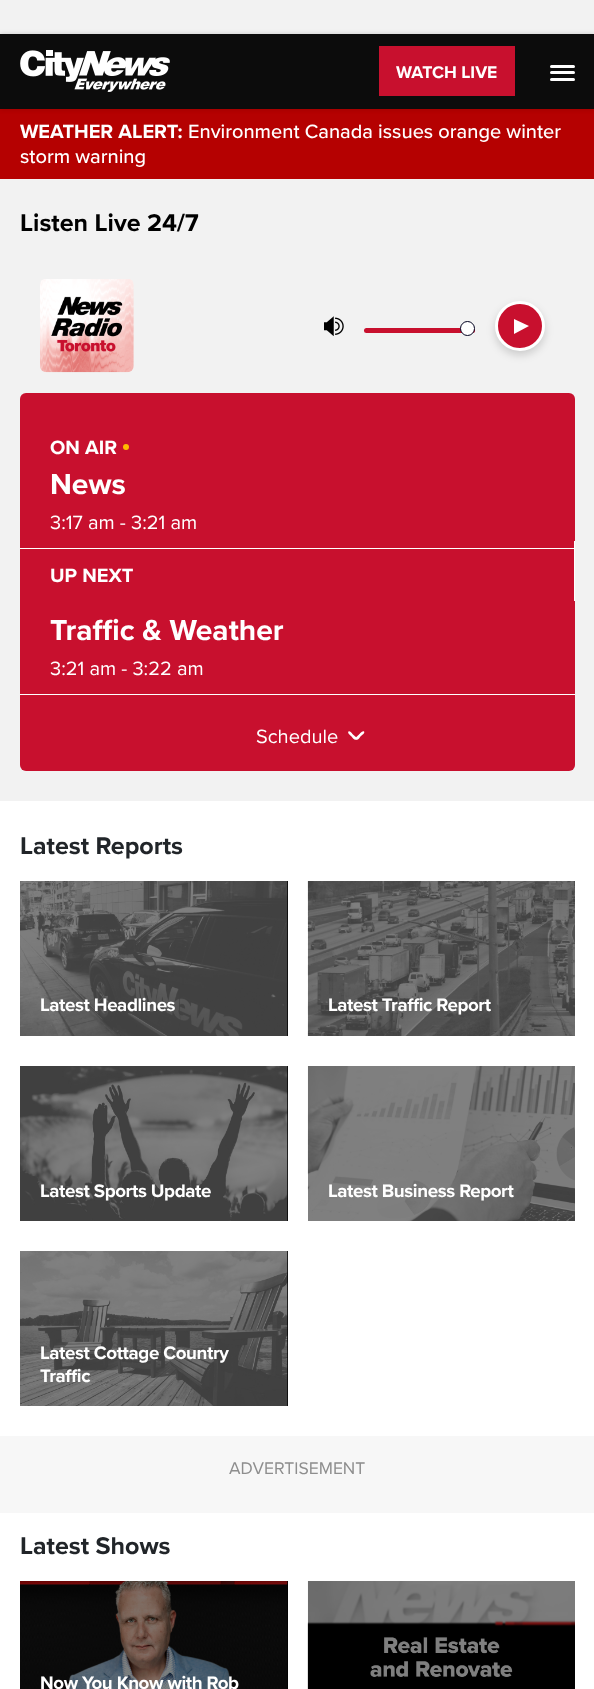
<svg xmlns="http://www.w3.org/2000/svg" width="594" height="1689">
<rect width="100%" height="100%" fill="#fff"/>
<rect width="594" height="34" fill="#f2f2f2"/>
<rect y="109" width="594" height="70" fill="#b50101"/>
<rect y="34" width="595" height="75" fill="#00000026" filter="blur(2.5px)"/>
<rect y="34" width="594" height="75" fill="#0c0c0c"/>
<image x="20" y="50" width="150" height="42" href="media/1.png"/>
<rect x="379" y="46" width="136" height="50" fill="#c8102e"/>
<text x="396" y="78" style="font-family:Proxima Nova;font-size:17.5px;font-weight:bold;fill:#fff">WATCH LIVE</text>
<rect x="550" y="71" width="25" height="3" rx="1.5" fill="#fff"/>
<rect x="550" y="65" width="25" height="3" rx="1.5" fill="#fff"/>
<rect x="550" y="78" width="25" height="3" rx="1.5" fill="#fff"/>
<text x="20" y="138" style="font-family:Proxima Nova;font-size:20px;font-weight:bold;fill:#fff">WEATHER ALERT:</text>
<text x="188" y="138" style="font-family:Proxima Nova;font-size:20px;font-weight:500;fill:#fff">Environment Canada issues orange winter</text>
<text x="20" y="163" style="font-family:Proxima Nova;font-size:20px;font-weight:500;fill:#fff">storm warning</text>
<rect y="179" width="594" height="622" fill="#f2f2f2"/>
<text x="20" y="231" style="font-family:Proxima Nova;font-size:25px;font-weight:bold;fill:#000">Listen Live 24/7</text>
<image x="40" y="279" width="94" height="94" href="media/2.png"/>
<image x="324" y="316" width="20" height="20" href="media/3.png"/>
<rect x="364" y="328" width="111" height="5" rx="2.5" fill="#c8102e"/>
<circle cx="467.5" cy="328.5" r="7" fill="#fff" stroke="#00001e"/>
<rect x="495" y="305" width="50" height="50" rx="25" fill="#00000029" filter="blur(4px)"/>
<circle cx="520" cy="326" r="23.5" fill="#c8102e" stroke="#fff" stroke-width="3"/>
<path d="M514 334v-15l15 7z" fill="#fff"/>
<rect x="20" y="393" width="555" height="378" rx="6" fill="#c8102e"/>
<rect x="20" y="548" width="555" height="1" fill="#fff"/>
<text x="50" y="454" style="font-family:Proxima Nova;font-size:20px;font-weight:bold;fill:#fff">ON AIR</text>
<circle cx="126" cy="447" r="3" fill="#ffba00"/>
<text x="50" y="494" style="font-family:Proxima Nova;font-size:30px;font-weight:bold;fill:#fff">News</text>
<text x="50" y="529" style="font-family:Proxima Nova;font-size:20px;fill:#fff">3:17 am - 3:21 am</text>
<rect x="574" y="541" width="1" height="60" fill="#fff"/>
<text x="50" y="582" style="font-family:Proxima Nova;font-size:20px;font-weight:bold;fill:#fff">UP NEXT</text>
<rect x="20" y="694" width="555" height="1" fill="#fff"/>
<text x="50" y="640" style="font-family:Proxima Nova;font-size:30px;font-weight:bold;fill:#fff">Traffic &amp; Weather</text>
<text x="50" y="675" style="font-family:Proxima Nova;font-size:20px;fill:#fff">3:21 am - 3:22 am</text>
<text x="256" y="743" style="font-family:Proxima Nova;font-size:20px;fill:#fff">Schedule</text>
<path d="M348.5 731.5c1.5-1.5 4 2.5 4.5 3c1 1 5 3.5 3.5 5c-1.5 1.5-4.5-2-5-3c-1-1-4.5-3.5-3-5z" fill="#fff"/>
<path d="M364 731.5c1.5 1.5-2.5 4-3.5 5c-.5 1-3 4.5-4.5 3c-1.5-1.5 2-4 3-5c.5-.5 3.5-4.5 5-3z" fill="#fff"/>
<text x="20" y="854" style="font-family:Proxima Nova;font-size:25px;font-weight:bold;fill:#212529">Latest Reports</text>
<rect x="20" y="881" width="268" height="155" fill="#000"/>
<image x="20" y="881" width="268" height="155" href="media/4.png"/>
<text x="40" y="1011" style="font-family:Proxima Nova;font-size:18.75px;font-weight:bold;letter-spacing:-0.4px;fill:#fff">Latest Headlines</text>
<rect x="308" y="881" width="267" height="155" fill="#000"/>
<image x="307" y="881" width="268" height="155" href="media/5.png"/>
<text x="328" y="1011" style="font-family:Proxima Nova;font-size:18.75px;font-weight:bold;letter-spacing:-0.4px;fill:#fff">Latest Traffic Report</text>
<rect x="20" y="1066" width="268" height="155" fill="#000"/>
<image x="20" y="1066" width="268" height="155" href="media/6.png"/>
<text x="40" y="1197" style="font-family:Proxima Nova;font-size:18.75px;font-weight:bold;letter-spacing:-0.4px;fill:#fff">Latest Sports Update</text>
<rect x="308" y="1066" width="267" height="155" fill="#000"/>
<image x="307" y="1066" width="268" height="155" href="media/7.png"/>
<text x="328" y="1197" style="font-family:Proxima Nova;font-size:18.75px;font-weight:bold;letter-spacing:-0.4px;fill:#fff">Latest Business Report</text>
<rect x="20" y="1251" width="268" height="155" fill="#000"/>
<image x="20" y="1251" width="268" height="155" href="media/8.png"/>
<text x="40" y="1359" style="font-family:Proxima Nova;font-size:18.75px;font-weight:bold;letter-spacing:-0.4px;fill:#fff">Latest Cottage Country</text>
<text x="40" y="1382" style="font-family:Proxima Nova;font-size:18.75px;font-weight:bold;letter-spacing:-0.4px;fill:#fff">Traffic</text>
<rect y="1436" width="594" height="77" fill="#f7f7f7"/>
<text x="229" y="1474" style="font-family:Proxima Nova;font-size:17.5px;fill:#8e8e8e">ADVERTISEMENT</text>
<text x="20" y="1554" style="font-family:Proxima Nova;font-size:25px;font-weight:bold;fill:#212529">Latest Shows</text>
<rect x="20" y="1581" width="268" height="108" fill="#000"/>
<image x="20" y="1581" width="268" height="108" href="media/9.png"/>
<text x="40" y="1689" style="font-family:Proxima Nova;font-size:18.75px;font-weight:bold;letter-spacing:-0.4px;fill:#fff">Now You Know with Rob</text>
<rect x="308" y="1581" width="267" height="108" fill="#000"/>
<image x="307" y="1581" width="268" height="108" href="media/10.png"/>
</svg>
